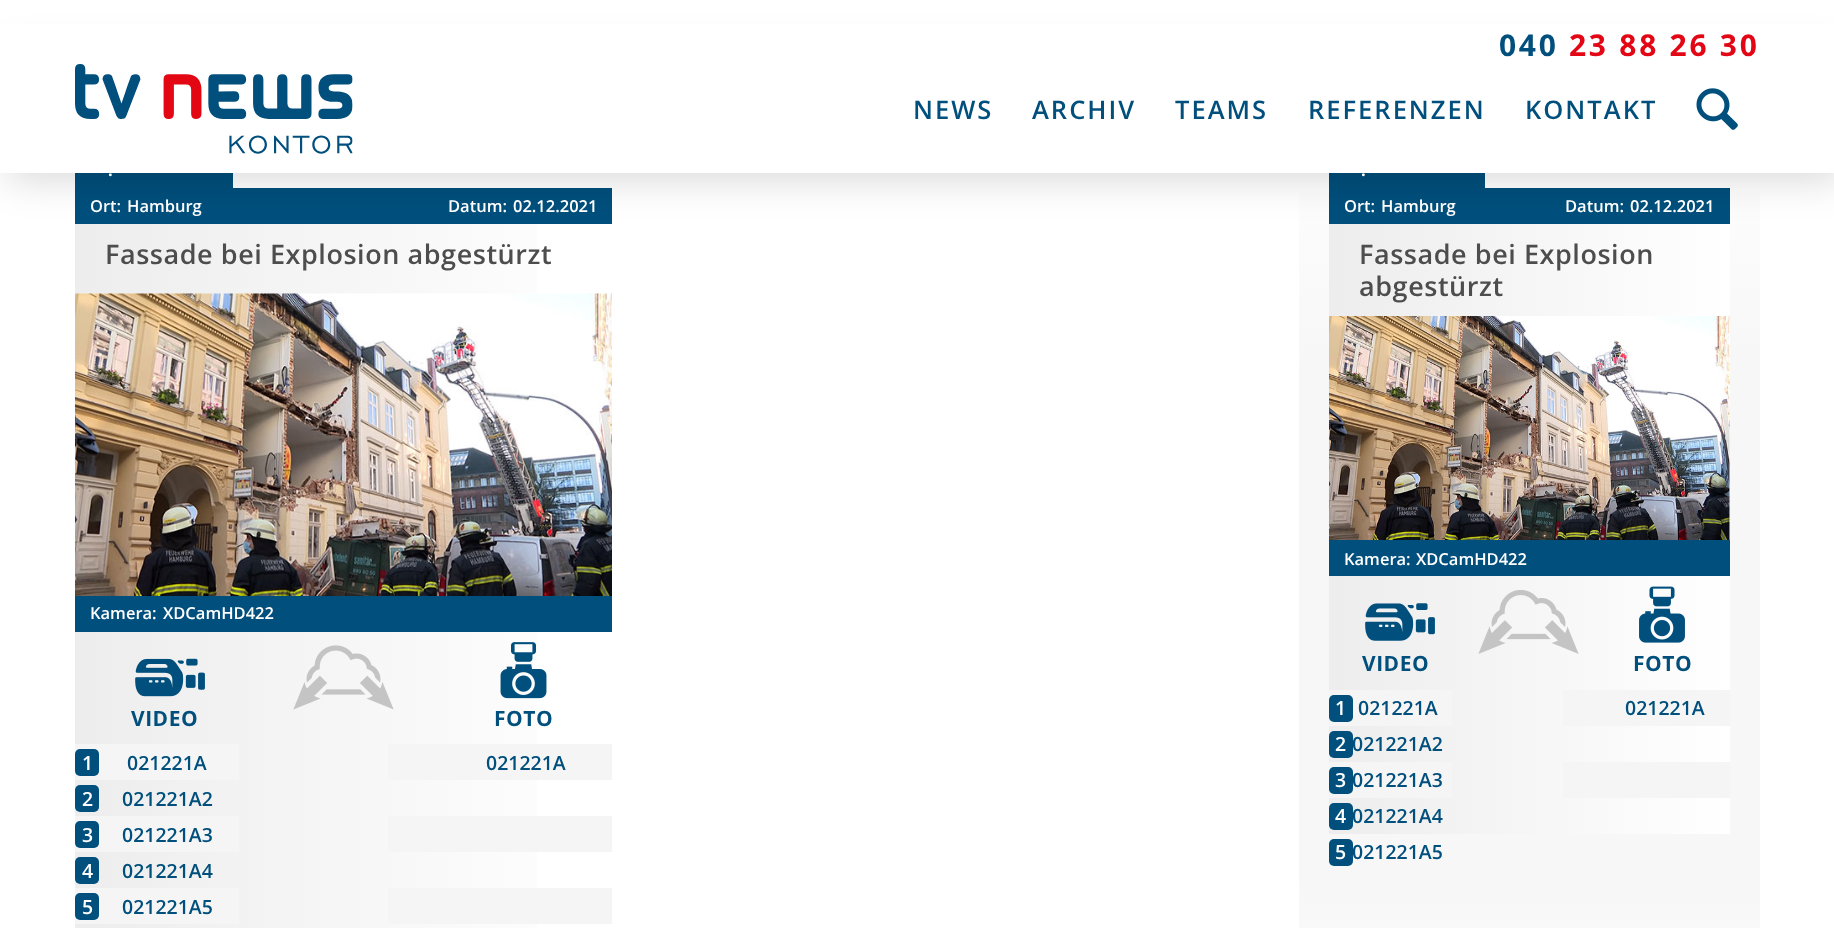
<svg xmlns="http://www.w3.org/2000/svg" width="1834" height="928">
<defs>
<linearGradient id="g1" gradientUnits="userSpaceOnUse" x1="75" y1="573" x2="612" y2="573"><stop offset="0" stop-color="#ededed"/><stop offset="1" stop-color="#fff"/></linearGradient>
<linearGradient id="g2" gradientUnits="userSpaceOnUse" x1="1529" y1="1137" x2="1529" y2="113"><stop offset="0" stop-color="#fff"/><stop offset="0.25" stop-color="#f7f7f7"/><stop offset="0.75" stop-color="#f7f7f7"/><stop offset="1" stop-color="#fff"/></linearGradient>
<linearGradient id="g3" gradientUnits="userSpaceOnUse" x1="1329" y1="529" x2="1730" y2="529"><stop offset="0" stop-color="#ededed"/><stop offset="1" stop-color="#fff"/></linearGradient>
<clipPath id="clip1"><path d="M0 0h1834v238h-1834zm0 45h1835v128h-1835z" clip-rule="evenodd"/></clipPath>
</defs>
<rect width="100%" height="100%" fill="#fff"/>
<rect x="75" y="224" width="462" height="704" fill="url(#g1)"/>
<rect x="75" y="173" width="158" height="15" fill="#004f7c"/>
<rect x="75" y="188" width="537" height="36" fill="#004f7c"/>
<rect x="1299" y="193" width="461" height="735" fill="url(#g2)"/>
<rect x="1329" y="224" width="401" height="610" fill="url(#g3)"/>
<rect x="1329" y="173" width="156" height="15" fill="#004f7c"/>
<rect x="1329" y="188" width="401" height="36" fill="#004f7c"/>
<g clip-path="url(#clip1)">
<rect x="8" y="53" width="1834" height="127" fill="#00000026" filter="blur(19px)"/>
</g>
<rect y="24" width="1834" height="21" fill="#fff"/>
<text x="1499" y="56" style="font-family:Open Sans;font-size:30px;font-weight:bold;letter-spacing:2.75px;fill:#004f7c">040</text>
<text x="1569" y="56" style="font-family:Open Sans;font-size:30px;font-weight:bold;letter-spacing:2.75px;fill:#e30615">23 88 26 30</text>
<image x="75" y="64" width="278" height="90" href="media/1.png"/>
<text x="913" y="119" style="font-family:Open Sans;font-size:25.5px;font-weight:600;letter-spacing:2px;fill:#004f7c">NEWS</text>
<text x="1032" y="119" style="font-family:Open Sans;font-size:25.5px;font-weight:600;letter-spacing:2px;fill:#004f7c">ARCHIV</text>
<text x="1175" y="119" style="font-family:Open Sans;font-size:25.5px;font-weight:600;letter-spacing:2px;fill:#004f7c">TEAMS</text>
<text x="1308" y="119" style="font-family:Open Sans;font-size:25.5px;font-weight:600;letter-spacing:2px;fill:#004f7c">REFERENZEN</text>
<text x="1525" y="119" style="font-family:Open Sans;font-size:25.5px;font-weight:600;letter-spacing:2px;fill:#004f7c">KONTAKT</text>
<image x="1696" y="88" width="42" height="42" href="media/2.png"/>
<text x="108" y="176" style="font-family:Open Sans;font-size:16.5px;font-weight:bold;fill:#fff">.</text>
<text x="90" y="212" style="font-family:Open Sans;font-size:16.5px;font-weight:600;fill:#fff">Ort:</text>
<text x="127" y="212" style="font-family:Open Sans;font-size:16.5px;font-weight:600;fill:#fff">Hamburg</text>
<text x="448" y="212" style="font-family:Open Sans;font-size:16.5px;font-weight:600;fill:#fff">Datum:</text>
<text x="513" y="212" style="font-family:Open Sans;font-size:16.5px;font-weight:600;fill:#fff">02.12.2021</text>
<text x="105" y="264" style="font-family:Open Sans;font-size:27px;font-weight:600;letter-spacing:0.55px;fill:#4d4d4d">Fassade bei Explosion abgestürzt</text>
<image x="75" y="293" width="537" height="303" href="media/3.png"/>
<rect x="75" y="596" width="537" height="36" fill="#004f7c"/>
<text x="90" y="619" style="font-family:Open Sans;font-size:16.5px;font-weight:600;fill:#fff">Kamera:</text>
<text x="163" y="619" style="font-family:Open Sans;font-size:16.5px;font-weight:600;fill:#fff">XDCamHD422</text>
<image x="135" y="658" width="70" height="39" href="media/4.png"/>
<text x="131" y="726" style="font-family:Open Sans;font-size:21px;font-weight:bold;letter-spacing:0.5px;fill:#004f7c">VIDEO</text>
<rect x="75" y="744" width="164" height="36" fill="#f5f5f5"/>
<rect x="75" y="749" width="24" height="27" rx="5" fill="#004f7c"/>
<text x="82" y="770" style="font-family:Open Sans;font-size:19.5px;font-weight:600;fill:#fff">1</text>
<text x="127" y="770" style="font-family:Open Sans;font-size:19.5px;font-weight:600;fill:#004f7c">021221A</text>
<rect x="75" y="785" width="24" height="27" rx="5" fill="#004f7c"/>
<text x="82" y="806" style="font-family:Open Sans;font-size:19.5px;font-weight:600;fill:#fff">2</text>
<text x="122" y="806" style="font-family:Open Sans;font-size:19.5px;font-weight:600;fill:#004f7c">021221A2</text>
<rect x="75" y="816" width="164" height="36" fill="#f5f5f5"/>
<rect x="75" y="821" width="24" height="27" rx="5" fill="#004f7c"/>
<text x="82" y="842" style="font-family:Open Sans;font-size:19.5px;font-weight:600;fill:#fff">3</text>
<text x="122" y="842" style="font-family:Open Sans;font-size:19.5px;font-weight:600;fill:#004f7c">021221A3</text>
<rect x="75" y="857" width="24" height="27" rx="5" fill="#004f7c"/>
<text x="82" y="878" style="font-family:Open Sans;font-size:19.5px;font-weight:600;fill:#fff">4</text>
<text x="122" y="878" style="font-family:Open Sans;font-size:19.5px;font-weight:600;fill:#004f7c">021221A4</text>
<rect x="75" y="888" width="164" height="36" fill="#f5f5f5"/>
<rect x="75" y="893" width="24" height="27" rx="5" fill="#004f7c"/>
<text x="82" y="914" style="font-family:Open Sans;font-size:19.5px;font-weight:600;fill:#fff">5</text>
<text x="122" y="914" style="font-family:Open Sans;font-size:19.5px;font-weight:600;fill:#004f7c">021221A5</text>
<image x="293" y="645" width="101" height="65" href="media/5.png"/>
<rect x="388" y="744" width="224" height="36" fill="#f5f5f5"/>
<rect x="388" y="816" width="224" height="36" fill="#f5f5f5"/>
<rect x="388" y="888" width="224" height="36" fill="#f5f5f5"/>
<image x="500" y="642" width="47" height="57" href="media/6.png"/>
<text x="494" y="726" style="font-family:Open Sans;font-size:21px;font-weight:bold;letter-spacing:0.5px;fill:#004f7c">FOTO</text>
<text x="486" y="770" style="font-family:Open Sans;font-size:19.5px;font-weight:600;fill:#004f7c">021221A</text>
<text x="1361" y="176" style="font-family:Open Sans;font-size:16.5px;font-weight:bold;fill:#fff">.</text>
<text x="1344" y="212" style="font-family:Open Sans;font-size:16.5px;font-weight:600;fill:#fff">Ort:</text>
<text x="1381" y="212" style="font-family:Open Sans;font-size:16.5px;font-weight:600;fill:#fff">Hamburg</text>
<text x="1565" y="212" style="font-family:Open Sans;font-size:16.5px;font-weight:600;fill:#fff">Datum:</text>
<text x="1630" y="212" style="font-family:Open Sans;font-size:16.5px;font-weight:600;fill:#fff">02.12.2021</text>
<text x="1359" y="264" style="font-family:Open Sans;font-size:27px;font-weight:600;letter-spacing:0.55px;fill:#4d4d4d">Fassade bei Explosion</text>
<text x="1359" y="296" style="font-family:Open Sans;font-size:27px;font-weight:600;letter-spacing:0.55px;fill:#4d4d4d">abgestürzt</text>
<image x="1329" y="316" width="401" height="224" href="media/7.png"/>
<rect x="1329" y="540" width="401" height="36" fill="#004f7c"/>
<text x="1344" y="565" style="font-family:Open Sans;font-size:16.5px;font-weight:600;fill:#fff">Kamera:</text>
<text x="1416" y="565" style="font-family:Open Sans;font-size:16.5px;font-weight:600;fill:#fff">XDCamHD422</text>
<image x="1365" y="603" width="70" height="38" href="media/8.png"/>
<text x="1362" y="671" style="font-family:Open Sans;font-size:21px;font-weight:bold;letter-spacing:0.5px;fill:#004f7c">VIDEO</text>
<rect x="1329" y="690" width="123" height="36" fill="#f5f5f5"/>
<rect x="1329" y="695" width="24" height="27" rx="5" fill="#004f7c"/>
<text x="1335" y="715" style="font-family:Open Sans;font-size:19.5px;font-weight:600;fill:#fff">1</text>
<text x="1358" y="715" style="font-family:Open Sans;font-size:19.5px;font-weight:600;fill:#004f7c">021221A</text>
<rect x="1329" y="731" width="24" height="27" rx="5" fill="#004f7c"/>
<text x="1335" y="751" style="font-family:Open Sans;font-size:19.5px;font-weight:600;fill:#fff">2</text>
<text x="1352" y="751" style="font-family:Open Sans;font-size:19.5px;font-weight:600;fill:#004f7c">021221A2</text>
<rect x="1329" y="762" width="123" height="36" fill="#f5f5f5"/>
<rect x="1329" y="767" width="24" height="27" rx="5" fill="#004f7c"/>
<text x="1335" y="787" style="font-family:Open Sans;font-size:19.5px;font-weight:600;fill:#fff">3</text>
<text x="1352" y="787" style="font-family:Open Sans;font-size:19.5px;font-weight:600;fill:#004f7c">021221A3</text>
<rect x="1329" y="803" width="24" height="27" rx="5" fill="#004f7c"/>
<text x="1335" y="823" style="font-family:Open Sans;font-size:19.5px;font-weight:600;fill:#fff">4</text>
<text x="1352" y="823" style="font-family:Open Sans;font-size:19.5px;font-weight:600;fill:#004f7c">021221A4</text>
<rect x="1329" y="839" width="24" height="27" rx="5" fill="#004f7c"/>
<text x="1335" y="859" style="font-family:Open Sans;font-size:19.5px;font-weight:600;fill:#fff">5</text>
<text x="1352" y="859" style="font-family:Open Sans;font-size:19.5px;font-weight:600;fill:#004f7c">021221A5</text>
<image x="1478" y="590" width="101" height="64" href="media/9.png"/>
<rect x="1563" y="690" width="167" height="36" fill="#f5f5f5"/>
<rect x="1563" y="762" width="167" height="36" fill="#f5f5f5"/>
<image x="1639" y="586" width="46" height="57" href="media/10.png"/>
<text x="1633" y="671" style="font-family:Open Sans;font-size:21px;font-weight:bold;letter-spacing:0.5px;fill:#004f7c">FOTO</text>
<text x="1625" y="715" style="font-family:Open Sans;font-size:19.5px;font-weight:600;fill:#004f7c">021221A</text>
</svg>
